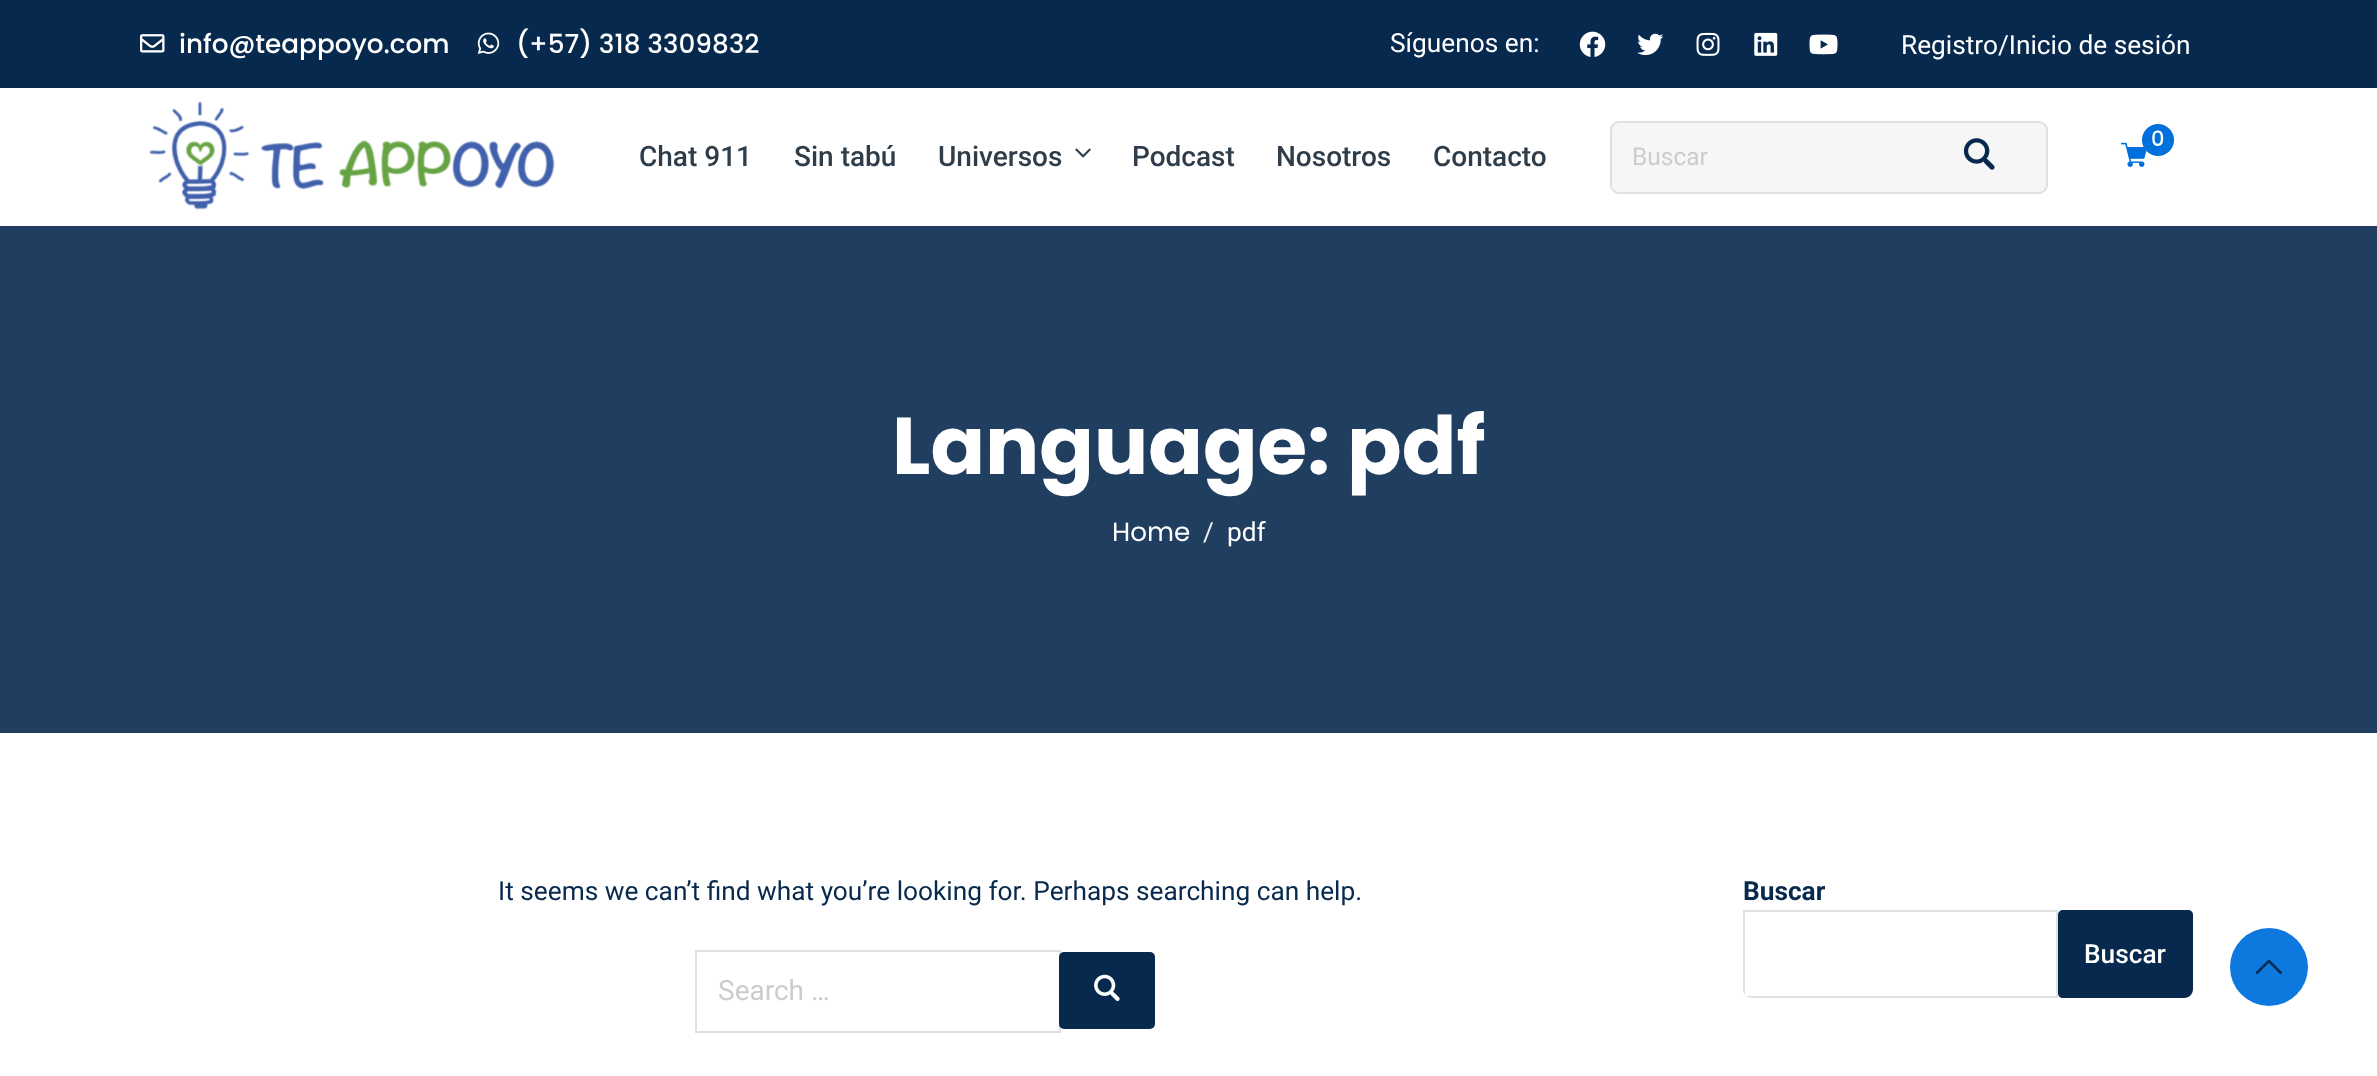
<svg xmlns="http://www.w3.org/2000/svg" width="2377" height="1076">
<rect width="100%" height="100%" fill="#fff"/>
<rect width="2377" height="88" fill="#07294d"/>
<image x="140" y="34" width="25" height="19" href="media/1.png"/>
<text x="179" y="53" style="font-family:Poppins;font-size:26.25px;font-weight:500;fill:#fff">info@teappoyo.com</text>
<image x="477" y="32" width="23" height="22" href="media/2.png"/>
<text x="516" y="53" style="font-family:Poppins;font-size:26.25px;font-weight:500;fill:#fff">(+57) 318 3309832</text>
<text x="1390" y="52" style="font-family:Roboto;font-size:26.25px;fill:#fff">Síguenos en:</text>
<image x="1579" y="31" width="27" height="26" href="media/3.png"/>
<image x="1637" y="33" width="27" height="23" href="media/4.png"/>
<image x="1696" y="32" width="24" height="24" href="media/5.png"/>
<image x="1754" y="32" width="24" height="24" href="media/6.png"/>
<image x="1809" y="34" width="29" height="21" href="media/7.png"/>
<text x="1901" y="54" style="font-family:Roboto;font-size:26.25px;fill:#fff">Registro/Inicio de sesión</text>
<image x="149" y="101" width="406" height="109" href="media/8.png"/>
<image x="2121" y="142" width="26" height="25" href="media/9.png"/>
<circle cx="2158" cy="140" r="16" fill="#0071dc"/>
<text x="2151" y="146" style="font-family:Poppins;font-size:21px;font-weight:500;fill:#fff">0</text>
<text x="639" y="166" style="font-family:Roboto;font-size:28px;font-weight:500;fill:#2e3d49">Chat 911</text>
<text x="794" y="166" style="font-family:Roboto;font-size:28px;font-weight:500;fill:#2e3d49">Sin tabú</text>
<text x="938" y="166" style="font-family:Roboto;font-size:28px;font-weight:500;fill:#2e3d49">Universos</text>
<image x="1075" y="148" width="16" height="10" href="media/10.png"/>
<text x="1132" y="166" style="font-family:Roboto;font-size:28px;font-weight:500;fill:#2e3d49">Podcast</text>
<text x="1276" y="166" style="font-family:Roboto;font-size:28px;font-weight:500;fill:#2e3d49">Nosotros</text>
<text x="1433" y="166" style="font-family:Roboto;font-size:28px;font-weight:500;fill:#2e3d49">Contacto</text>
<rect x="1611" y="122" width="436" height="71" rx="8" fill="#f6f6f6" stroke="#e0e0e0" stroke-width="2"/>
<text x="1632" y="165" style="font-family:Roboto;font-size:24.5px;fill:#ccc">Buscar</text>
<image x="1963" y="138" width="32" height="32" href="media/11.png"/>
<rect y="226" width="2377" height="507" fill="#203e5f"/>
<text x="892" y="474" style="font-family:Poppins;font-size:80.5px;font-weight:bold;fill:#fff">Language: pdf</text>
<text x="1112" y="541" style="font-family:Poppins;font-size:26.25px;fill:#fff">Home</text>
<text x="1203" y="541" style="font-family:Roboto;font-size:26.25px;fill:#edf0f2">/</text>
<text x="1227" y="541" style="font-family:Roboto;font-size:26.25px;fill:#fff">pdf</text>
<text x="498" y="900" style="font-family:Roboto;font-size:26.25px;fill:#07294d">It seems we can’t find what you’re looking for. Perhaps searching can help.</text>
<rect x="696" y="951" width="364" height="81" fill="none" stroke="#e0e0e0" stroke-width="2"/>
<text x="718" y="1000" style="font-family:Roboto;font-size:28px;fill:#ccc">Search …</text>
<rect x="1059" y="952" width="96" height="77" rx="5" fill="#07294d"/>
<image x="1094" y="974" width="26" height="27" href="media/12.png"/>
<text x="1743" y="900" style="font-family:Roboto;font-size:26.25px;font-weight:bold;fill:#07294d">Buscar</text>
<path d="M1745 912h311v84h-310c2 1 4 2 6 2h306v-88h-315v79c0 2 1 4 2 6z" fill="#e0e0e0"/>
<path d="M2063 910h125c3 0 5 2 5 5v74c0 5-4 9-9 9h-121c-3 0-5-2-5-5v-78c0-3 2-5 5-5z" fill="#07294d"/>
<text x="2084" y="963" style="font-family:Roboto;font-size:26.25px;font-weight:500;fill:#fff">Buscar</text>
<circle cx="2269" cy="967" r="39" fill="#0d78de"/>
<image x="2255" y="959" width="27" height="15" href="media/13.png"/>
</svg>
